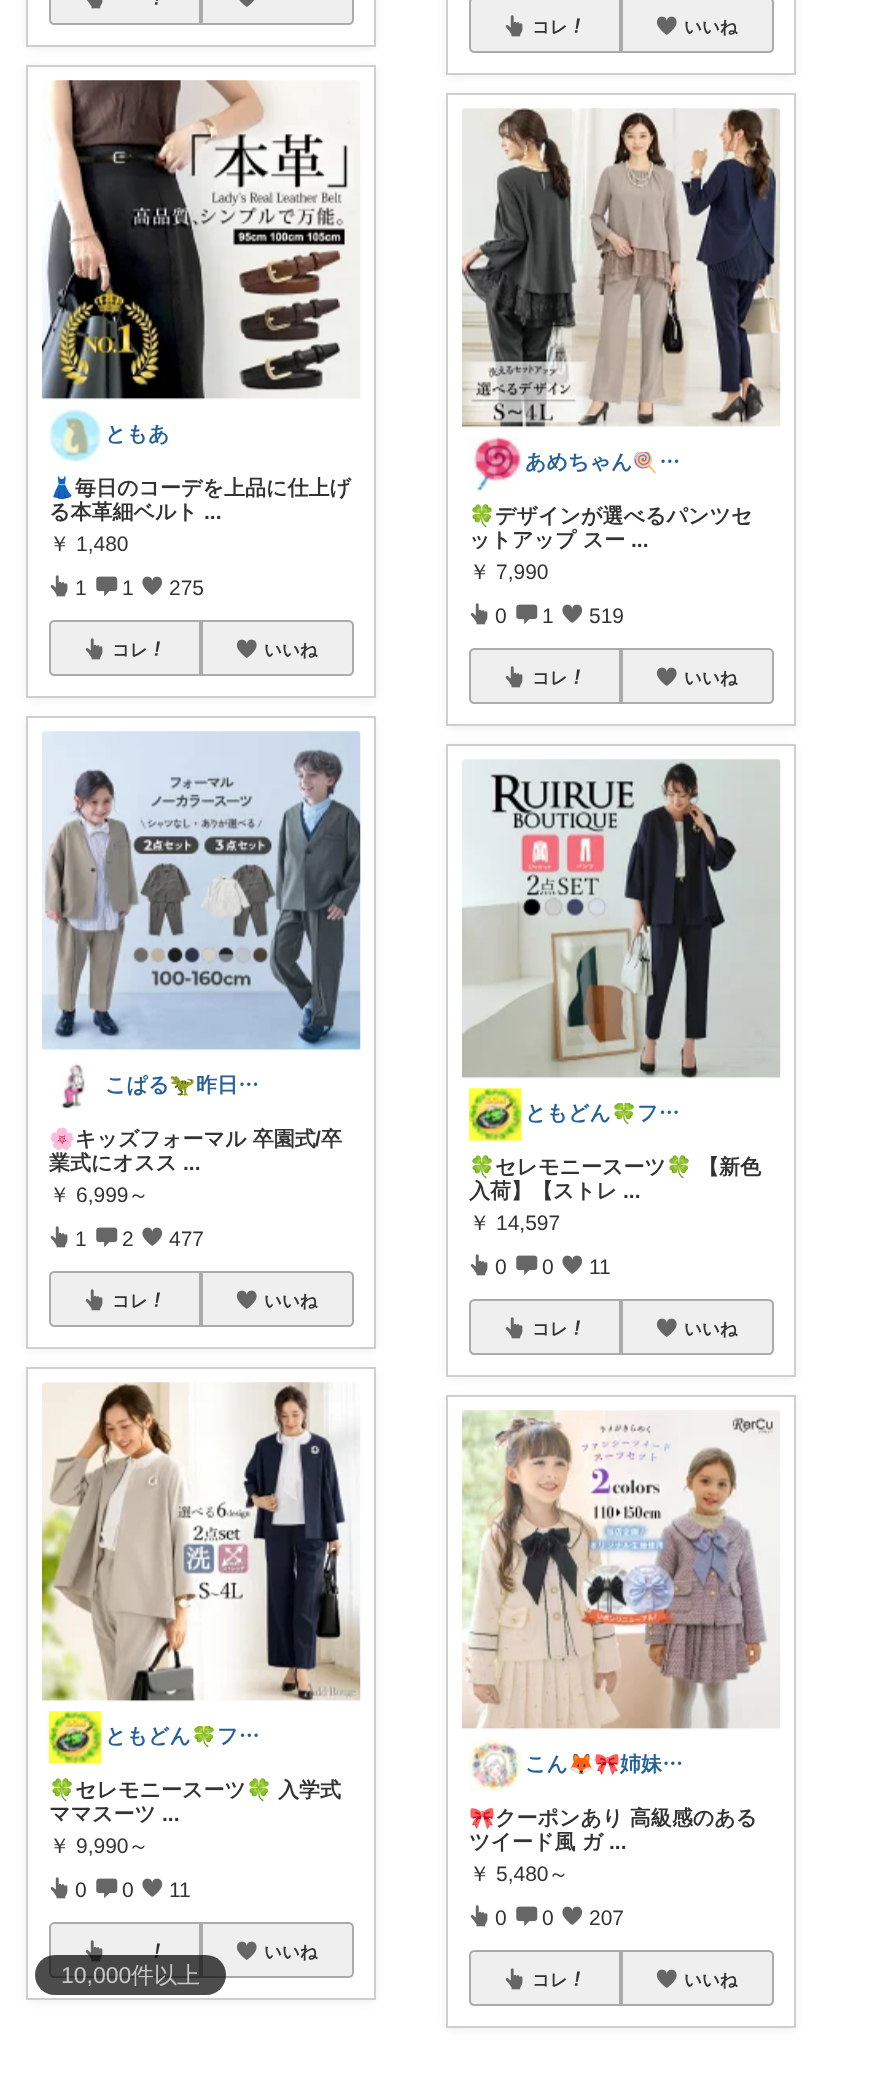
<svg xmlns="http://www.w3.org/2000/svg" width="874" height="2088">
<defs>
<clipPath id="clip1"><rect x="105" y="1075" width="175" height="22"/></clipPath>
<clipPath id="clip2"><rect x="105" y="1726" width="175" height="22"/></clipPath>
<clipPath id="clip3"><rect x="525" y="452" width="175" height="22"/></clipPath>
<clipPath id="clip4"><rect x="525" y="1103" width="175" height="22"/></clipPath>
<clipPath id="clip5"><rect x="525" y="1754" width="175" height="22"/></clipPath>
</defs>
<rect width="100%" height="100%" fill="#fff"/>
<rect x="26" y="-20" width="350" height="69" rx="5" fill="#efefef" filter="blur(5px)"/>
<rect x="27" y="-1" width="348" height="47" fill="#fff" stroke="#cfcfcf" stroke-width="2"/>
<path d="M54-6h146v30h-146c-2 0-4-2-4-4v-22c0-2 2-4 4-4z" fill="#efefef" stroke="#ababab" stroke-width="2"/>
<image x="86" y="0" width="17" height="9" href="media/1.png"/>
<image x="154" y="0" width="4" height="5" href="media/2.png"/>
<path d="M202-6h147c2 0 4 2 4 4v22c0 2-2 4-4 4h-147z" fill="#efefef" stroke="#ababab" stroke-width="2"/>
<image x="239" y="0" width="16" height="7" href="media/3.png"/>
<rect x="26" y="67" width="350" height="633" rx="5" fill="#efefef" filter="blur(5px)"/>
<rect x="27" y="66" width="348" height="631" fill="#fff" stroke="#cfcfcf" stroke-width="2"/>
<image x="42" y="80" width="319" height="320" href="media/4.png"/>
<image x="49" y="409" width="53" height="54" href="media/5.png"/>
<text x="105" y="441" style="font-family:WenQuanYi Zen Hei;font-size:21px;font-weight:bold;fill:#266099">ともあ</text>
<text x="49" y="495" style="font-family:Noto Color Emoji;font-size:21px;font-weight:bold;fill:#333">👗</text>
<text x="75" y="495" style="font-family:WenQuanYi Zen Hei;font-size:21px;font-weight:bold;fill:#333">毎日のコーデを上品に仕上げ</text>
<text x="49" y="519" style="font-family:WenQuanYi Zen Hei;font-size:21px;font-weight:bold;fill:#333">る本革細ベルト</text>
<text x="204" y="519" style="font-family:Liberation Sans;font-size:21px;font-weight:bold;fill:#333">...</text>
<text x="49" y="551" style="font-family:WenQuanYi Zen Hei;font-size:21px;font-weight:500;fill:#333">￥</text>
<text x="76" y="551" style="font-family:Liberation Sans;font-size:21px;fill:#333">1,480</text>
<image x="50" y="575" width="18" height="22" href="media/6.png"/>
<text x="75" y="595" style="font-family:Liberation Sans;font-size:21px;fill:#333">1</text>
<image x="96" y="576" width="22" height="21" href="media/7.png"/>
<text x="122" y="595" style="font-family:Liberation Sans;font-size:21px;fill:#333">1</text>
<image x="142" y="576" width="21" height="19" href="media/8.png"/>
<text x="169" y="595" style="font-family:Liberation Sans;font-size:21px;fill:#333">275</text>
<path d="M54 621h146v54h-146c-2 0-4-2-4-4v-46c0-2 2-4 4-4z" fill="#efefef" stroke="#ababab" stroke-width="2"/>
<image x="85" y="638" width="18" height="22" href="media/9.png"/>
<text x="112" y="656" style="font-family:WenQuanYi Zen Hei;font-size:17.5px;font-weight:bold;fill:#333">コレ</text>
<image x="154" y="641" width="6" height="15" href="media/10.png"/>
<path d="M202 621h147c2 0 4 2 4 4v46c0 2-2 4-4 4h-147z" fill="#efefef" stroke="#ababab" stroke-width="2"/>
<image x="236" y="639" width="21" height="19" href="media/11.png"/>
<text x="264" y="656" style="font-family:WenQuanYi Zen Hei;font-size:17.5px;font-weight:bold;fill:#333">いいね</text>
<rect x="26" y="718" width="350" height="633" rx="5" fill="#efefef" filter="blur(5px)"/>
<rect x="27" y="717" width="348" height="631" fill="#fff" stroke="#cfcfcf" stroke-width="2"/>
<image x="42" y="731" width="319" height="320" href="media/12.png"/>
<image x="60" y="1063" width="31" height="47" href="media/13.png"/>
<text x="105" y="1092" style="font-family:WenQuanYi Zen Hei;font-size:21px;font-weight:bold;fill:#266099">こぱる</text>
<g clip-path="url(#clip1)">
<text x="169" y="1092" style="font-family:Noto Color Emoji;font-size:21px;font-weight:bold;fill:#266099">🦖</text>
</g>
<text x="196" y="1092" style="font-family:WenQuanYi Zen Hei;font-size:21px;font-weight:bold;fill:#266099">昨日…</text>
<text x="49" y="1146" style="font-family:Noto Color Emoji;font-size:21px;font-weight:bold;fill:#333">🌸</text>
<text x="75" y="1146" style="font-family:WenQuanYi Zen Hei;font-size:21px;font-weight:bold;fill:#333">キッズフォーマル 卒園式</text>
<text x="315" y="1146" style="font-family:Liberation Sans;font-size:21px;font-weight:bold;fill:#333">/</text>
<text x="321" y="1146" style="font-family:WenQuanYi Zen Hei;font-size:21px;font-weight:bold;fill:#333">卒</text>
<text x="49" y="1170" style="font-family:WenQuanYi Zen Hei;font-size:21px;font-weight:bold;fill:#333">業式にオスス</text>
<text x="183" y="1170" style="font-family:Liberation Sans;font-size:21px;font-weight:bold;fill:#333">...</text>
<text x="49" y="1202" style="font-family:WenQuanYi Zen Hei;font-size:21px;font-weight:500;fill:#333">￥</text>
<text x="76" y="1202" style="font-family:Liberation Sans;font-size:21px;fill:#333">6,999</text>
<text x="128" y="1202" style="font-family:WenQuanYi Zen Hei;font-size:21px;font-weight:500;fill:#333">～</text>
<image x="50" y="1226" width="18" height="22" href="media/6.png"/>
<text x="75" y="1246" style="font-family:Liberation Sans;font-size:21px;fill:#333">1</text>
<image x="96" y="1227" width="22" height="21" href="media/7.png"/>
<text x="122" y="1246" style="font-family:Liberation Sans;font-size:21px;fill:#333">2</text>
<image x="142" y="1227" width="21" height="19" href="media/8.png"/>
<text x="169" y="1246" style="font-family:Liberation Sans;font-size:21px;fill:#333">477</text>
<path d="M54 1272h146v54h-146c-2 0-4-2-4-4v-46c0-2 2-4 4-4z" fill="#efefef" stroke="#ababab" stroke-width="2"/>
<image x="85" y="1289" width="18" height="22" href="media/9.png"/>
<text x="112" y="1307" style="font-family:WenQuanYi Zen Hei;font-size:17.5px;font-weight:bold;fill:#333">コレ</text>
<image x="154" y="1292" width="6" height="15" href="media/10.png"/>
<path d="M202 1272h147c2 0 4 2 4 4v46c0 2-2 4-4 4h-147z" fill="#efefef" stroke="#ababab" stroke-width="2"/>
<image x="236" y="1290" width="21" height="19" href="media/11.png"/>
<text x="264" y="1307" style="font-family:WenQuanYi Zen Hei;font-size:17.5px;font-weight:bold;fill:#333">いいね</text>
<rect x="26" y="1369" width="350" height="633" rx="5" fill="#efefef" filter="blur(5px)"/>
<rect x="27" y="1368" width="348" height="631" fill="#fff" stroke="#cfcfcf" stroke-width="2"/>
<image x="42" y="1382" width="319" height="320" href="media/14.png"/>
<image x="49" y="1711" width="53" height="54" href="media/15.png"/>
<text x="105" y="1743" style="font-family:WenQuanYi Zen Hei;font-size:21px;font-weight:bold;fill:#266099">ともどん</text>
<g clip-path="url(#clip2)">
<text x="191" y="1743" style="font-family:Noto Color Emoji;font-size:21px;font-weight:bold;fill:#266099">🍀</text>
</g>
<text x="217" y="1743" style="font-family:WenQuanYi Zen Hei;font-size:21px;font-weight:bold;fill:#266099">フ…</text>
<text x="49" y="1797" style="font-family:Noto Color Emoji;font-size:21px;font-weight:bold;fill:#333">🍀</text>
<text x="75" y="1797" style="font-family:WenQuanYi Zen Hei;font-size:21px;font-weight:bold;fill:#333">セレモニースーツ</text>
<text x="246" y="1797" style="font-family:Noto Color Emoji;font-size:21px;font-weight:bold;fill:#333">🍀</text>
<text x="278" y="1797" style="font-family:WenQuanYi Zen Hei;font-size:21px;font-weight:bold;fill:#333">入学式</text>
<text x="49" y="1821" style="font-family:WenQuanYi Zen Hei;font-size:21px;font-weight:bold;fill:#333">ママスーツ</text>
<text x="162" y="1821" style="font-family:Liberation Sans;font-size:21px;font-weight:bold;fill:#333">...</text>
<text x="49" y="1853" style="font-family:WenQuanYi Zen Hei;font-size:21px;font-weight:500;fill:#333">￥</text>
<text x="76" y="1853" style="font-family:Liberation Sans;font-size:21px;fill:#333">9,990</text>
<text x="128" y="1853" style="font-family:WenQuanYi Zen Hei;font-size:21px;font-weight:500;fill:#333">～</text>
<image x="50" y="1877" width="18" height="22" href="media/6.png"/>
<text x="75" y="1897" style="font-family:Liberation Sans;font-size:21px;fill:#333">0</text>
<image x="96" y="1878" width="22" height="21" href="media/7.png"/>
<text x="122" y="1897" style="font-family:Liberation Sans;font-size:21px;fill:#333">0</text>
<image x="142" y="1878" width="21" height="19" href="media/8.png"/>
<text x="169" y="1897" style="font-family:Liberation Sans;font-size:21px;fill:#333">11</text>
<path d="M54 1923h146v54h-146c-2 0-4-2-4-4v-46c0-2 2-4 4-4z" fill="#efefef" stroke="#ababab" stroke-width="2"/>
<image x="85" y="1940" width="18" height="22" href="media/9.png"/>
<image x="154" y="1943" width="6" height="15" href="media/10.png"/>
<path d="M202 1923h147c2 0 4 2 4 4v46c0 2-2 4-4 4h-147z" fill="#efefef" stroke="#ababab" stroke-width="2"/>
<image x="236" y="1941" width="21" height="19" href="media/11.png"/>
<text x="264" y="1958" style="font-family:WenQuanYi Zen Hei;font-size:17.5px;font-weight:bold;fill:#333">いいね</text>
<rect x="446" y="-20" width="350" height="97" rx="5" fill="#efefef" filter="blur(5px)"/>
<rect x="447" y="-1" width="348" height="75" fill="#fff" stroke="#cfcfcf" stroke-width="2"/>
<path d="M474-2h146v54h-146c-2 0-4-2-4-4v-46c0-2 2-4 4-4z" fill="#efefef" stroke="#ababab" stroke-width="2"/>
<image x="505" y="15" width="18" height="22" href="media/9.png"/>
<text x="532" y="33" style="font-family:WenQuanYi Zen Hei;font-size:17.5px;font-weight:bold;fill:#333">コレ</text>
<image x="574" y="18" width="6" height="15" href="media/10.png"/>
<path d="M622-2h147c2 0 4 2 4 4v46c0 2-2 4-4 4h-147z" fill="#efefef" stroke="#ababab" stroke-width="2"/>
<image x="656" y="16" width="21" height="19" href="media/11.png"/>
<text x="684" y="33" style="font-family:WenQuanYi Zen Hei;font-size:17.5px;font-weight:bold;fill:#333">いいね</text>
<rect x="446" y="95" width="350" height="633" rx="5" fill="#efefef" filter="blur(5px)"/>
<rect x="447" y="94" width="348" height="631" fill="#fff" stroke="#cfcfcf" stroke-width="2"/>
<image x="462" y="108" width="319" height="320" href="media/16.png"/>
<image x="469" y="437" width="53" height="54" href="media/17.png"/>
<text x="525" y="469" style="font-family:WenQuanYi Zen Hei;font-size:21px;font-weight:bold;fill:#266099">あめちゃん</text>
<g clip-path="url(#clip3)">
<text x="632" y="469" style="font-family:Noto Color Emoji;font-size:21px;font-weight:bold;fill:#266099">🍭</text>
</g>
<text x="659" y="469" style="font-family:WenQuanYi Zen Hei;font-size:21px;font-weight:bold;fill:#266099">…</text>
<text x="469" y="523" style="font-family:Noto Color Emoji;font-size:21px;font-weight:bold;fill:#333">🍀</text>
<text x="495" y="523" style="font-family:WenQuanYi Zen Hei;font-size:21px;font-weight:bold;fill:#333">デザインが選べるパンツセ</text>
<text x="469" y="547" style="font-family:WenQuanYi Zen Hei;font-size:21px;font-weight:bold;fill:#333">ットアップ スー</text>
<text x="631" y="547" style="font-family:Liberation Sans;font-size:21px;font-weight:bold;fill:#333">...</text>
<text x="469" y="579" style="font-family:WenQuanYi Zen Hei;font-size:21px;font-weight:500;fill:#333">￥</text>
<text x="496" y="579" style="font-family:Liberation Sans;font-size:21px;fill:#333">7,990</text>
<image x="470" y="603" width="18" height="22" href="media/6.png"/>
<text x="495" y="623" style="font-family:Liberation Sans;font-size:21px;fill:#333">0</text>
<image x="516" y="604" width="22" height="21" href="media/7.png"/>
<text x="542" y="623" style="font-family:Liberation Sans;font-size:21px;fill:#333">1</text>
<image x="562" y="604" width="21" height="19" href="media/8.png"/>
<text x="589" y="623" style="font-family:Liberation Sans;font-size:21px;fill:#333">519</text>
<path d="M474 649h146v54h-146c-2 0-4-2-4-4v-46c0-2 2-4 4-4z" fill="#efefef" stroke="#ababab" stroke-width="2"/>
<image x="505" y="666" width="18" height="22" href="media/9.png"/>
<text x="532" y="684" style="font-family:WenQuanYi Zen Hei;font-size:17.5px;font-weight:bold;fill:#333">コレ</text>
<image x="574" y="669" width="6" height="15" href="media/10.png"/>
<path d="M622 649h147c2 0 4 2 4 4v46c0 2-2 4-4 4h-147z" fill="#efefef" stroke="#ababab" stroke-width="2"/>
<image x="656" y="667" width="21" height="19" href="media/11.png"/>
<text x="684" y="684" style="font-family:WenQuanYi Zen Hei;font-size:17.5px;font-weight:bold;fill:#333">いいね</text>
<rect x="446" y="746" width="350" height="633" rx="5" fill="#efefef" filter="blur(5px)"/>
<rect x="447" y="745" width="348" height="631" fill="#fff" stroke="#cfcfcf" stroke-width="2"/>
<image x="462" y="759" width="319" height="320" href="media/18.png"/>
<image x="469" y="1088" width="53" height="54" href="media/15.png"/>
<text x="525" y="1120" style="font-family:WenQuanYi Zen Hei;font-size:21px;font-weight:bold;fill:#266099">ともどん</text>
<g clip-path="url(#clip4)">
<text x="611" y="1120" style="font-family:Noto Color Emoji;font-size:21px;font-weight:bold;fill:#266099">🍀</text>
</g>
<text x="637" y="1120" style="font-family:WenQuanYi Zen Hei;font-size:21px;font-weight:bold;fill:#266099">フ…</text>
<text x="469" y="1174" style="font-family:Noto Color Emoji;font-size:21px;font-weight:bold;fill:#333">🍀</text>
<text x="495" y="1174" style="font-family:WenQuanYi Zen Hei;font-size:21px;font-weight:bold;fill:#333">セレモニースーツ</text>
<text x="666" y="1174" style="font-family:Noto Color Emoji;font-size:21px;font-weight:bold;fill:#333">🍀</text>
<text x="698" y="1174" style="font-family:WenQuanYi Zen Hei;font-size:21px;font-weight:bold;fill:#333">【新色</text>
<text x="469" y="1198" style="font-family:WenQuanYi Zen Hei;font-size:21px;font-weight:bold;fill:#333">入荷】【ストレ</text>
<text x="623" y="1198" style="font-family:Liberation Sans;font-size:21px;font-weight:bold;fill:#333">...</text>
<text x="469" y="1230" style="font-family:WenQuanYi Zen Hei;font-size:21px;font-weight:500;fill:#333">￥</text>
<text x="496" y="1230" style="font-family:Liberation Sans;font-size:21px;fill:#333">14,597</text>
<image x="470" y="1254" width="18" height="22" href="media/6.png"/>
<text x="495" y="1274" style="font-family:Liberation Sans;font-size:21px;fill:#333">0</text>
<image x="516" y="1255" width="22" height="21" href="media/7.png"/>
<text x="542" y="1274" style="font-family:Liberation Sans;font-size:21px;fill:#333">0</text>
<image x="562" y="1255" width="21" height="19" href="media/8.png"/>
<text x="589" y="1274" style="font-family:Liberation Sans;font-size:21px;fill:#333">11</text>
<path d="M474 1300h146v54h-146c-2 0-4-2-4-4v-46c0-2 2-4 4-4z" fill="#efefef" stroke="#ababab" stroke-width="2"/>
<image x="505" y="1317" width="18" height="22" href="media/9.png"/>
<text x="532" y="1335" style="font-family:WenQuanYi Zen Hei;font-size:17.5px;font-weight:bold;fill:#333">コレ</text>
<image x="574" y="1320" width="6" height="15" href="media/10.png"/>
<path d="M622 1300h147c2 0 4 2 4 4v46c0 2-2 4-4 4h-147z" fill="#efefef" stroke="#ababab" stroke-width="2"/>
<image x="656" y="1318" width="21" height="19" href="media/11.png"/>
<text x="684" y="1335" style="font-family:WenQuanYi Zen Hei;font-size:17.5px;font-weight:bold;fill:#333">いいね</text>
<rect x="446" y="1397" width="350" height="633" rx="5" fill="#efefef" filter="blur(5px)"/>
<rect x="447" y="1396" width="348" height="631" fill="#fff" stroke="#cfcfcf" stroke-width="2"/>
<image x="462" y="1410" width="319" height="320" href="media/19.png"/>
<image x="469" y="1739" width="53" height="53" href="media/20.png"/>
<text x="525" y="1771" style="font-family:WenQuanYi Zen Hei;font-size:21px;font-weight:bold;fill:#266099">こん</text>
<g clip-path="url(#clip5)">
<text x="568" y="1771" style="font-family:Noto Color Emoji;font-size:21px;font-weight:bold;fill:#266099">🦊🎀</text>
</g>
<text x="620" y="1771" style="font-family:WenQuanYi Zen Hei;font-size:21px;font-weight:bold;fill:#266099">姉妹…</text>
<text x="469" y="1825" style="font-family:Noto Color Emoji;font-size:21px;font-weight:bold;fill:#333">🎀</text>
<text x="495" y="1825" style="font-family:WenQuanYi Zen Hei;font-size:21px;font-weight:bold;fill:#333">クーポンあり 高級感のある</text>
<text x="469" y="1849" style="font-family:WenQuanYi Zen Hei;font-size:21px;font-weight:bold;fill:#333">ツイード風 ガ</text>
<text x="609" y="1849" style="font-family:Liberation Sans;font-size:21px;font-weight:bold;fill:#333">...</text>
<text x="469" y="1881" style="font-family:WenQuanYi Zen Hei;font-size:21px;font-weight:500;fill:#333">￥</text>
<text x="496" y="1881" style="font-family:Liberation Sans;font-size:21px;fill:#333">5,480</text>
<text x="548" y="1881" style="font-family:WenQuanYi Zen Hei;font-size:21px;font-weight:500;fill:#333">～</text>
<image x="470" y="1905" width="18" height="22" href="media/6.png"/>
<text x="495" y="1925" style="font-family:Liberation Sans;font-size:21px;fill:#333">0</text>
<image x="516" y="1906" width="22" height="21" href="media/7.png"/>
<text x="542" y="1925" style="font-family:Liberation Sans;font-size:21px;fill:#333">0</text>
<image x="562" y="1906" width="21" height="19" href="media/8.png"/>
<text x="589" y="1925" style="font-family:Liberation Sans;font-size:21px;fill:#333">207</text>
<path d="M474 1951h146v54h-146c-2 0-4-2-4-4v-46c0-2 2-4 4-4z" fill="#efefef" stroke="#ababab" stroke-width="2"/>
<image x="505" y="1968" width="18" height="22" href="media/9.png"/>
<text x="532" y="1986" style="font-family:WenQuanYi Zen Hei;font-size:17.5px;font-weight:bold;fill:#333">コレ</text>
<image x="574" y="1971" width="6" height="15" href="media/10.png"/>
<path d="M622 1951h147c2 0 4 2 4 4v46c0 2-2 4-4 4h-147z" fill="#efefef" stroke="#ababab" stroke-width="2"/>
<image x="656" y="1969" width="21" height="19" href="media/11.png"/>
<text x="684" y="1986" style="font-family:WenQuanYi Zen Hei;font-size:17.5px;font-weight:bold;fill:#333">いいね</text>
<rect x="35" y="1955" width="191" height="40" rx="20" fill="#000000b3"/>
<text x="61" y="1983" style="font-family:Liberation Sans;font-size:23px;fill:#c8c8c8">10,000</text>
<text x="131" y="1983" style="font-family:WenQuanYi Zen Hei;font-size:23px;font-weight:500;fill:#c8c8c8">件</text>
<text x="154" y="1983" style="font-family:WenQuanYi Zen Hei;font-size:23px;font-weight:500;fill:#c8c8c8">以上</text>
</svg>
